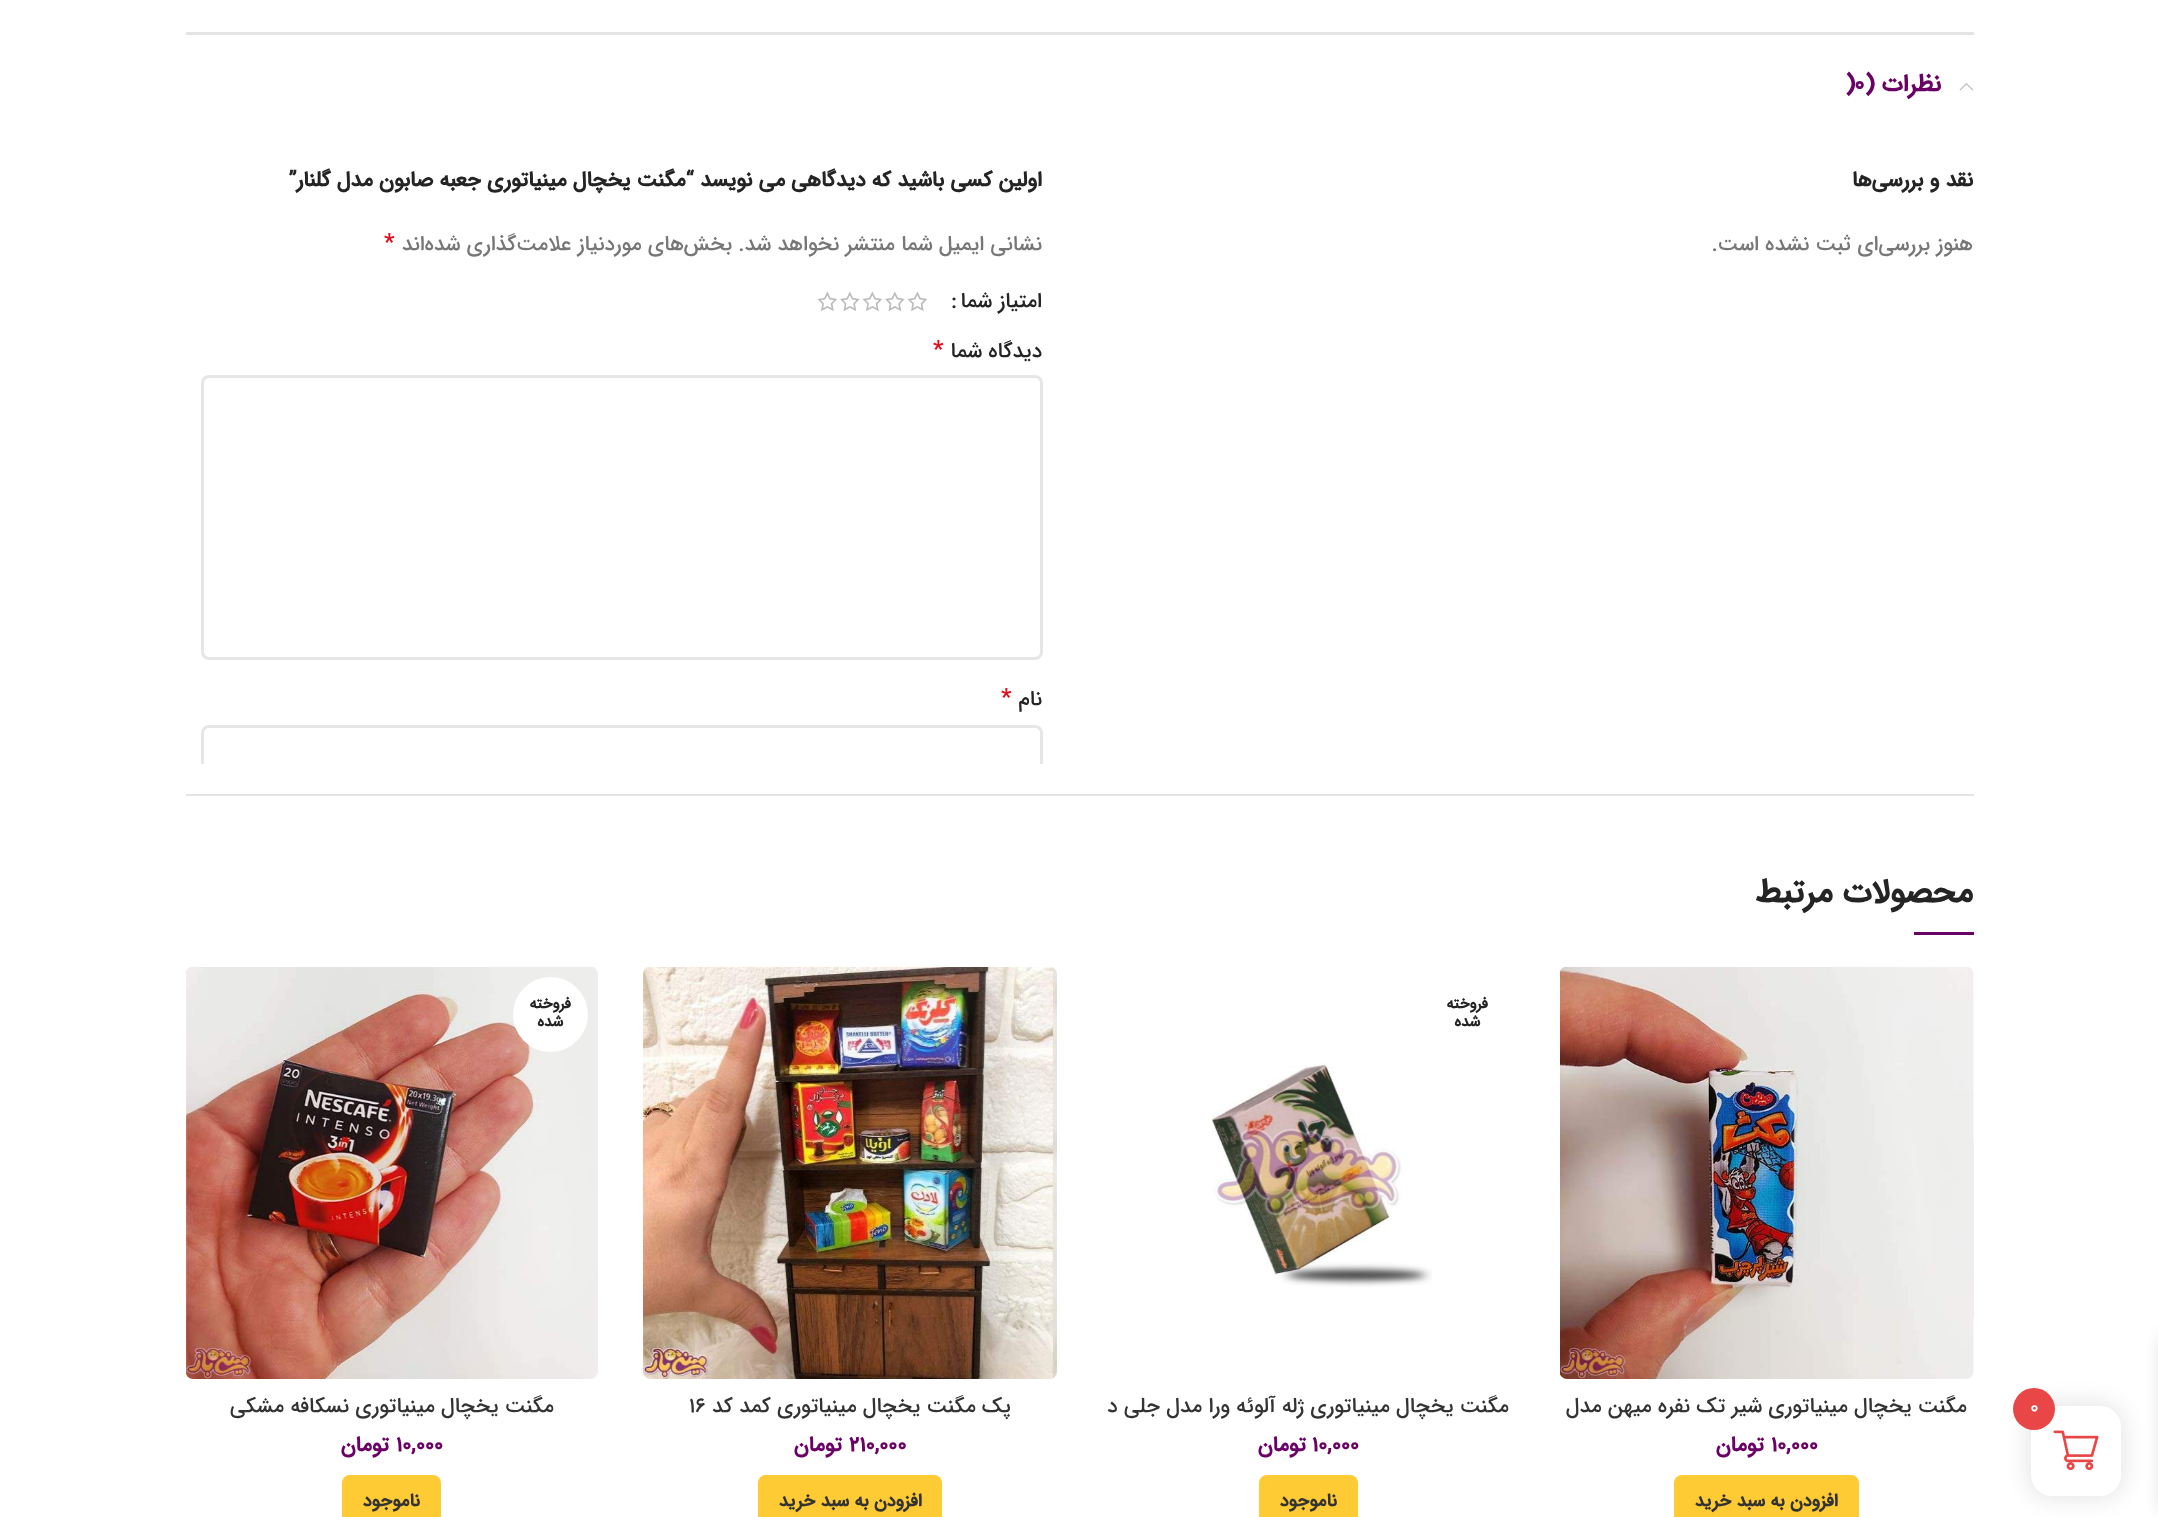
<svg xmlns="http://www.w3.org/2000/svg" width="2158" height="1517">
<defs>
<clipPath id="clip1"><rect x="186" y="164" width="1788" height="600"/></clipPath>
</defs>
<rect width="100%" height="100%" fill="#fff"/>
<rect x="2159" y="1337" width="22" height="174" fill="#0000001a" filter="blur(7.5px)"/>
<rect x="2028" y="1403" width="96" height="96" rx="24" fill="#0000001a" filter="blur(11px)"/>
<rect x="2031" y="1406" width="90" height="90" rx="21" fill="#fff"/>
<circle cx="2034" cy="1409" r="21" fill="#e94647"/>
<text x="2030" y="1413" style="font-family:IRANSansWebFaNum;font-size:20px;font-weight:500;fill:#fff">0</text>
<image x="2053" y="1430" width="46" height="41" href="media/1.png"/>
<rect x="186" y="32" width="1788" height="3" fill="#e4e4e4"/>
<rect x="186" y="794" width="1788" height="2" fill="#e4e4e4"/>
<image x="1959" y="83" width="15" height="8" href="media/2.png"/>
<text x="1941" y="91" style="font-family:IRANSansWebFaNum;font-size:24px;font-weight:bold;direction:rtl;fill:#6a0265">نظرات (</text>
<text x="1854" y="91" style="font-family:IRANSansWebFaNum;font-size:24px;font-weight:bold;fill:#6a0265">0</text>
<text x="1845" y="91" style="font-family:IRANSansWebFaNum;font-size:24px;font-weight:bold;fill:#6a0265">)</text>
<text x="1973" y="186" style="font-family:IRANSansWebFaNum;font-size:21px;font-weight:bold;direction:rtl;fill:#242424">نقد و بررسی‌ها</text>
<text x="1973" y="250" style="font-family:IRANSansWebFaNum;font-size:21px;font-weight:500;direction:rtl;fill:#777">هنوز بررسی‌ای ثبت نشده است.</text>
<text x="1042" y="186" style="font-family:IRANSansWebFaNum;font-size:21px;font-weight:bold;direction:rtl;fill:#242424">اولین کسی باشید که دیدگاهی می نویسد “مگنت یخچال مینیاتوری جعبه صابون مدل گلنار”</text>
<text x="1042" y="250" style="font-family:IRANSansWebFaNum;font-size:21px;font-weight:500;direction:rtl;fill:#777">نشانی ایمیل شما منتشر نخواهد شد.</text>
<text x="732" y="250" style="font-family:IRANSansWebFaNum;font-size:21px;font-weight:500;direction:rtl;fill:#777">بخش‌های موردنیاز علامت‌گذاری شده‌اند</text>
<text x="384" y="250" style="font-family:IRANSansWebFaNum;font-size:24px;font-weight:500;fill:#e01020">*</text>
<text x="1042" y="307" style="font-family:IRANSansWebFaNum;font-size:21px;font-weight:500;direction:rtl;fill:#242424">امتیاز شما</text>
<text x="951" y="307" style="font-family:IRANSansWebFaNum;font-size:21px;font-weight:500;fill:#242424">:</text>
<image x="907" y="291" width="20" height="20" href="media/3.png"/>
<image x="885" y="291" width="20" height="20" href="media/4.png"/>
<image x="862" y="291" width="20" height="20" href="media/3.png"/>
<image x="840" y="291" width="20" height="20" href="media/4.png"/>
<image x="817" y="291" width="20" height="20" href="media/3.png"/>
<text x="1042" y="357" style="font-family:IRANSansWebFaNum;font-size:21px;font-weight:500;direction:rtl;fill:#242424">دیدگاه شما</text>
<text x="933" y="357" style="font-family:IRANSansWebFaNum;font-size:24px;font-weight:500;fill:#e01020">*</text>
<rect x="202.5" y="376.5" width="839" height="282" rx="6.5" fill="none" stroke="#e6e6e6" stroke-width="3"/>
<text x="1042" y="705" style="font-family:IRANSansWebFaNum;font-size:21px;font-weight:500;direction:rtl;fill:#242424">نام</text>
<text x="1001" y="705" style="font-family:IRANSansWebFaNum;font-size:24px;font-weight:500;fill:#e01020">*</text>
<g clip-path="url(#clip1)">
<rect x="202.5" y="726.5" width="839" height="60" rx="6.5" fill="none" stroke="#e6e6e6" stroke-width="3"/>
</g>
<text x="1973" y="902" style="font-family:IRANSansWebFaNum;font-size:33px;font-weight:bold;direction:rtl;fill:#242424">محصولات مرتبط</text>
<rect x="1914" y="932" width="60" height="3" fill="#6a0265"/>
<image x="1560" y="967" width="414" height="412" href="media/5.png"/>
<text x="1967" y="1412" style="font-family:IRANSansWebFaNum;font-size:21px;font-weight:500;direction:rtl;fill:#333">مگنت یخچال مینیاتوری شیر تک نفره میهن مدل</text>
<text x="1771" y="1451" style="font-family:IRANSansWebFaNum;font-size:21px;font-weight:bold;fill:#6a0265">10,000</text>
<text x="1764" y="1451" style="font-family:IRANSansWebFaNum;font-size:21px;font-weight:bold;direction:rtl;fill:#6a0265">تومان</text>
<rect x="1674" y="1475" width="185" height="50" rx="8" fill="#fecb34"/>
<text x="1838" y="1506" style="font-family:IRANSansWebFaNum;font-size:18px;font-weight:bold;direction:rtl;fill:#333">افزودن به سبد خرید</text>
<text x="1488" y="1008" style="font-family:IRANSansWebFaNum;font-size:15px;font-weight:bold;direction:rtl;fill:#242424">فروخته</text>
<text x="1480" y="1026" style="font-family:IRANSansWebFaNum;font-size:15px;font-weight:bold;direction:rtl;fill:#242424">شده</text>
<image x="1212" y="1063" width="220" height="224" href="media/6.png"/>
<text x="1509" y="1412" style="font-family:IRANSansWebFaNum;font-size:21px;font-weight:500;direction:rtl;fill:#333">مگنت یخچال مینیاتوری ژله آلوئه ورا مدل جلی د</text>
<text x="1312" y="1451" style="font-family:IRANSansWebFaNum;font-size:21px;font-weight:bold;fill:#6a0265">10,000</text>
<text x="1306" y="1451" style="font-family:IRANSansWebFaNum;font-size:21px;font-weight:bold;direction:rtl;fill:#6a0265">تومان</text>
<rect x="1259" y="1475" width="99" height="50" rx="8" fill="#fecb34"/>
<text x="1337" y="1506" style="font-family:IRANSansWebFaNum;font-size:18px;font-weight:bold;direction:rtl;fill:#333">ناموجود</text>
<image x="643" y="967" width="414" height="412" href="media/7.png"/>
<text x="1011" y="1412" style="font-family:IRANSansWebFaNum;font-size:21px;font-weight:500;direction:rtl;fill:#333">پک مگنت یخچال مینیاتوری کمد کد</text>
<text x="689" y="1412" style="font-family:IRANSansWebFaNum;font-size:21px;font-weight:500;fill:#333">16</text>
<text x="849" y="1451" style="font-family:IRANSansWebFaNum;font-size:21px;font-weight:bold;fill:#6a0265">210,000</text>
<text x="842" y="1451" style="font-family:IRANSansWebFaNum;font-size:21px;font-weight:bold;direction:rtl;fill:#6a0265">تومان</text>
<rect x="758" y="1475" width="184" height="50" rx="8" fill="#fecb34"/>
<text x="922" y="1506" style="font-family:IRANSansWebFaNum;font-size:18px;font-weight:bold;direction:rtl;fill:#333">افزودن به سبد خرید</text>
<image x="186" y="967" width="412" height="412" href="media/8.png"/>
<circle cx="550.5" cy="1014.5" r="37.5" fill="#fff"/>
<text x="571" y="1008" style="font-family:IRANSansWebFaNum;font-size:15px;font-weight:bold;direction:rtl;fill:#242424">فروخته</text>
<text x="563" y="1026" style="font-family:IRANSansWebFaNum;font-size:15px;font-weight:bold;direction:rtl;fill:#242424">شده</text>
<text x="554" y="1412" style="font-family:IRANSansWebFaNum;font-size:21px;font-weight:500;direction:rtl;fill:#333">مگنت یخچال مینیاتوری نسکافه مشکی</text>
<text x="396" y="1451" style="font-family:IRANSansWebFaNum;font-size:21px;font-weight:bold;fill:#6a0265">10,000</text>
<text x="389" y="1451" style="font-family:IRANSansWebFaNum;font-size:21px;font-weight:bold;direction:rtl;fill:#6a0265">تومان</text>
<rect x="342" y="1475" width="99" height="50" rx="8" fill="#fecb34"/>
<text x="420" y="1506" style="font-family:IRANSansWebFaNum;font-size:18px;font-weight:bold;direction:rtl;fill:#333">ناموجود</text>
</svg>
